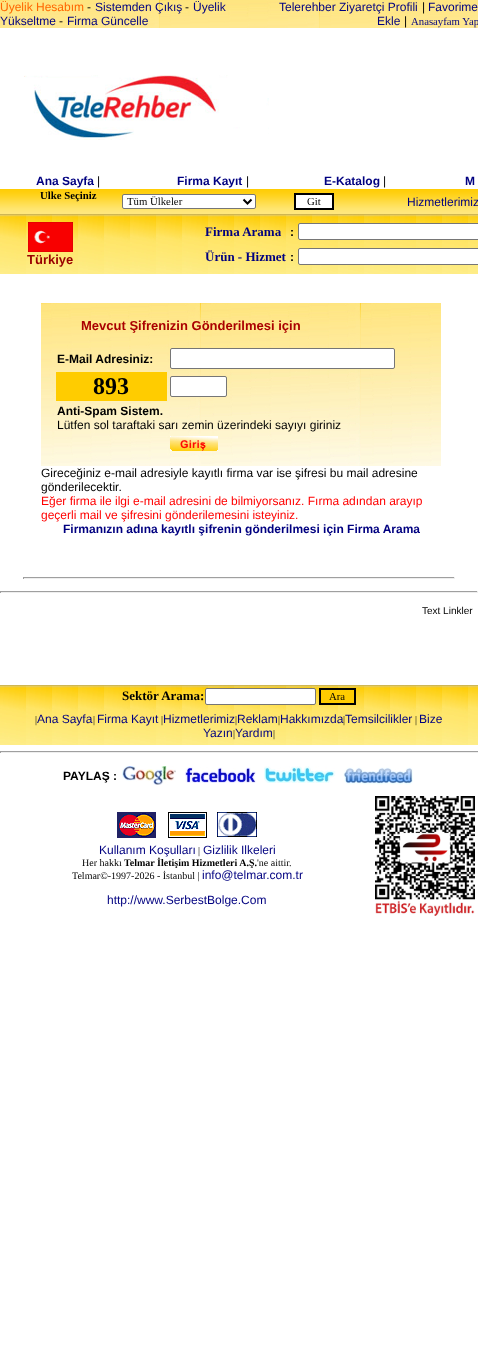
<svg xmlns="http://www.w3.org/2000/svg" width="478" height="1359">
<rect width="100%" height="100%" fill="#fff"/>
<image x="0" y="0" width="478" height="28" href="media/1.png"/>
<text x="0" y="11" style="font-family:Liberation Sans;font-size:12px;fill:#f60">Üyelik Hesabım</text>
<text x="87" y="11" style="font-family:Liberation Sans;font-size:12px;fill:#000">-</text>
<text x="95" y="11" style="font-family:Liberation Sans;font-size:12px;fill:#000080">Sistemden Çıkış</text>
<text x="185" y="11" style="font-family:Liberation Sans;font-size:12px;fill:#000">-</text>
<text x="193" y="11" style="font-family:Liberation Sans;font-size:12px;fill:#000080">Üyelik</text>
<text x="0" y="25" style="font-family:Liberation Sans;font-size:12px;fill:#000080">Yükseltme</text>
<text x="59" y="25" style="font-family:Liberation Sans;font-size:12px;fill:#000">-</text>
<text x="67" y="25" style="font-family:Liberation Sans;font-size:12px;fill:#000080">Firma Güncelle</text>
<text x="279" y="11" style="font-family:Liberation Sans;font-size:12px;fill:#000080">Telerehber Ziyaretçi Profili</text>
<text x="422" y="11" style="font-family:Liberation Sans;font-size:12px;fill:#000">|</text>
<text x="428" y="11" style="font-family:Liberation Sans;font-size:12px;fill:#000080">Favorime</text>
<text x="377" y="25" style="font-family:Liberation Sans;font-size:12px;fill:#000080">Ekle</text>
<text x="404" y="25" style="font-family:Liberation Sans;font-size:12px;fill:#000">|</text>
<text x="411" y="25" style="font-family:Liberation Serif;font-size:10.75px;fill:#000080">Anasayfam Yap</text>
<image x="24" y="75" width="245" height="65" href="media/2.png"/>
<text x="36" y="185" style="font-family:Liberation Sans;font-size:12px;font-weight:bold;fill:#000080">Ana Sayfa</text>
<text x="97" y="185" style="font-family:Liberation Sans;font-size:12px;fill:#000">|</text>
<text x="177" y="185" style="font-family:Liberation Sans;font-size:12px;font-weight:bold;fill:#000080">Firma Kayıt</text>
<text x="246" y="185" style="font-family:Liberation Sans;font-size:12px;fill:#000">|</text>
<text x="324" y="185" style="font-family:Liberation Sans;font-size:12px;font-weight:bold;fill:#000080">E-Katalog</text>
<text x="383" y="185" style="font-family:Liberation Sans;font-size:12px;fill:#000">|</text>
<text x="465" y="185" style="font-family:Liberation Sans;font-size:12px;font-weight:bold;fill:#000080">M</text>
<image x="0" y="189" width="478" height="25" href="media/3.png"/>
<text x="40" y="199" style="font-family:Liberation Serif;font-size:10.75px;font-weight:bold;fill:#000">Ulke Seçiniz</text>
<rect x="122.5" y="194.5" width="133" height="14" rx="1.5" fill="#fff" stroke="#767676"/>
<path d="M243.5 199.5l4 4l4-4" fill="none" stroke="#000" stroke-width="2"/>
<text x="127" y="205" style="font-family:Liberation Serif;font-size:10.75px;fill:#000">Tüm Ülkeler</text>
<rect x="295" y="194" width="38" height="15" fill="#fff" stroke="#000" stroke-width="2"/>
<text x="307" y="205" style="font-family:Liberation Serif;font-size:10.75px;fill:#000">Git</text>
<text x="407" y="206" style="font-family:Liberation Sans;font-size:12px;fill:#000080">Hizmetlerimiz</text>
<image x="0" y="214" width="478" height="60" href="media/4.png"/>
<image x="28" y="222" width="45" height="30" href="media/5.png"/>
<text x="27" y="264" style="font-family:Liberation Sans;font-size:13px;font-weight:bold;fill:#900">Türkiye</text>
<text x="205" y="236" style="font-family:Liberation Serif;font-size:13px;font-weight:bold;fill:#000080">Firma Arama</text>
<text x="290" y="236" style="font-family:Liberation Sans;font-size:12px;font-weight:bold;fill:#000">:</text>
<rect x="298.5" y="223.5" width="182" height="16" rx="1.5" fill="#fff" stroke="#767676"/>
<text x="205" y="261" style="font-family:Liberation Serif;font-size:13px;font-weight:bold;fill:#000080">Ürün - Hizmet</text>
<text x="290" y="261" style="font-family:Liberation Sans;font-size:12px;font-weight:bold;fill:#000">:</text>
<rect x="298.5" y="248.5" width="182" height="16" rx="1.5" fill="#fff" stroke="#767676"/>
<image x="41" y="303" width="400" height="163" href="media/6.png"/>
<text x="81" y="330" style="font-family:Liberation Sans;font-size:13px;font-weight:bold;fill:#a00">Mevcut Şifrenizin Gönderilmesi için</text>
<text x="57" y="363" style="font-family:Liberation Sans;font-size:12px;font-weight:bold;fill:#000">E-Mail Adresiniz:</text>
<rect x="170.5" y="348.5" width="224" height="20" rx="1.5" fill="#fff" stroke="#767676"/>
<rect x="56" y="372" width="111" height="29" fill="#fc0"/>
<text x="93" y="394" style="font-family:Liberation Serif;font-size:24px;font-weight:bold;fill:#000">893</text>
<rect x="170.5" y="376.5" width="56" height="20" rx="1.5" fill="#fff" stroke="#767676"/>
<text x="57" y="415" style="font-family:Liberation Sans;font-size:12px;font-weight:bold;fill:#000">Anti-Spam Sistem.</text>
<text x="57" y="429" style="font-family:Liberation Sans;font-size:12px;fill:#000">Lütfen sol taraftaki sarı zemin üzerindeki sayıyı giriniz</text>
<image x="170" y="436" width="48" height="15" href="media/7.png"/>
<text x="41" y="477" style="font-family:Liberation Sans;font-size:12px;fill:#000">Gireceğiniz e-mail adresiyle kayıtlı firma var ise şifresi bu mail adresine</text>
<text x="41" y="491" style="font-family:Liberation Sans;font-size:12px;fill:#000">gönderilecektir.</text>
<text x="41" y="505" style="font-family:Liberation Sans;font-size:12px;fill:#f00">Eğer firma ile ilgi e-mail adresini de bilmiyorsanız. Fırma adından arayıp</text>
<text x="41" y="519" style="font-family:Liberation Sans;font-size:12px;fill:#f00">geçerli mail ve şifresini gönderilemesini isteyiniz.</text>
<text x="63" y="533" style="font-family:Liberation Sans;font-size:12px;font-weight:bold;fill:#000080">Firmanızın adına kayıtlı şifrenin gönderilmesi için Firma Arama</text>
<rect x="23" y="577" width="432" height="1" fill="#9f9f9f"/>
<rect x="454" y="577" width="1" height="2" fill="#eee"/>
<rect x="23" y="578" width="432" height="1" fill="#eee"/>
<rect x="23" y="577" width="1" height="2" fill="#9f9f9f"/>
<rect y="591" width="478" height="1" fill="#9f9f9f"/>
<rect x="477" y="591" width="1" height="2" fill="#eee"/>
<rect y="592" width="478" height="1" fill="#eee"/>
<rect y="591" width="1" height="2" fill="#9f9f9f"/>
<text x="422" y="614" style="font-family:Liberation Sans;font-size:10px;fill:#000">Text Linkler</text>
<image x="0" y="685" width="478" height="60" href="media/4.png"/>
<text x="122" y="700" style="font-family:Liberation Serif;font-size:13px;font-weight:bold;fill:#000">Sektör Arama:</text>
<rect x="205.5" y="688.5" width="110" height="16" rx="1.5" fill="#fff" stroke="#767676"/>
<rect x="320" y="689" width="35" height="15" fill="#fc0" stroke="#000" stroke-width="2"/>
<text x="329" y="700" style="font-family:Liberation Serif;font-size:10.75px;fill:#000">Ara</text>
<text x="35" y="723" style="font-family:Liberation Serif;font-size:10px;fill:#000">|</text>
<text x="37" y="723" style="font-family:Liberation Sans;font-size:12px;fill:#000080">Ana Sayfa</text>
<text x="93" y="723" style="font-family:Liberation Serif;font-size:10px;fill:#000">|</text>
<text x="97" y="723" style="font-family:Liberation Sans;font-size:12px;fill:#000080">Firma Kayıt</text>
<text x="161" y="723" style="font-family:Liberation Serif;font-size:10px;fill:#000">|</text>
<text x="163" y="723" style="font-family:Liberation Sans;font-size:12px;fill:#000080">Hizmetlerimiz</text>
<text x="235" y="723" style="font-family:Liberation Serif;font-size:10px;fill:#000">|</text>
<text x="237" y="723" style="font-family:Liberation Sans;font-size:12px;fill:#000080">Reklam</text>
<text x="278" y="723" style="font-family:Liberation Serif;font-size:10px;fill:#000">|</text>
<text x="280" y="723" style="font-family:Liberation Sans;font-size:12px;fill:#000080">Hakkımızda</text>
<text x="345" y="723" style="font-family:Liberation Sans;font-size:12px;fill:#000080">Temsilcilikler</text>
<text x="419" y="723" style="font-family:Liberation Sans;font-size:12px;fill:#000080">Bize</text>
<text x="343" y="723" style="font-family:Liberation Serif;font-size:10px;fill:#000">|</text>
<text x="415" y="723" style="font-family:Liberation Serif;font-size:10px;fill:#000">|</text>
<text x="203" y="737" style="font-family:Liberation Sans;font-size:12px;fill:#000080">Yazın</text>
<text x="233" y="737" style="font-family:Liberation Serif;font-size:10px;fill:#000">|</text>
<text x="235" y="737" style="font-family:Liberation Sans;font-size:12px;fill:#000080">Yardım</text>
<text x="273" y="737" style="font-family:Liberation Serif;font-size:10px;fill:#000">|</text>
<rect y="751" width="478" height="1" fill="#9f9f9f"/>
<rect y="752" width="478" height="1" fill="#eee"/>
<rect y="751" width="1" height="2" fill="#9f9f9f"/>
<text x="63" y="780" style="font-family:Liberation Sans;font-size:12px;font-weight:bold;fill:#000">PAYLAŞ :</text>
<image x="122" y="766" width="54" height="19" href="media/8.png"/>
<image x="185" y="767" width="71" height="16" href="media/9.png"/>
<image x="264" y="766" width="72" height="17" href="media/10.png"/>
<image x="343" y="767" width="70" height="18" href="media/11.png"/>
<image x="117" y="812" width="140" height="26" href="media/12.png"/>
<text x="99" y="854" style="font-family:Liberation Sans;font-size:12px;fill:#000080">Kullanım Koşulları</text>
<text x="198" y="854" style="font-family:Liberation Serif;font-size:10px;fill:#000">|</text>
<text x="203" y="854" style="font-family:Liberation Sans;font-size:12px;fill:#000080">Gizlilik Ilkeleri</text>
<text x="82" y="866" style="font-family:Liberation Serif;font-size:10px;fill:#000">Her hakkı</text>
<text x="124" y="866" style="font-family:Liberation Serif;font-size:10px;font-weight:bold;fill:#000">Telmar İletişim Hizmetleri A.Ş.</text>
<text x="257" y="866" style="font-family:Liberation Serif;font-size:10px;fill:#000">'ne aittir.</text>
<text x="72" y="879" style="font-family:Liberation Serif;font-size:10px;fill:#000">Telmar©-1997-2026 - İstanbul |</text>
<text x="202" y="879" style="font-family:Liberation Sans;font-size:12px;fill:#000080">info@telmar.com.tr</text>
<text x="107" y="904" style="font-family:Liberation Sans;font-size:12px;fill:#000080">http://www.SerbestBolge.Com</text>
<image x="375" y="796" width="100" height="120" href="media/13.png"/>
</svg>
